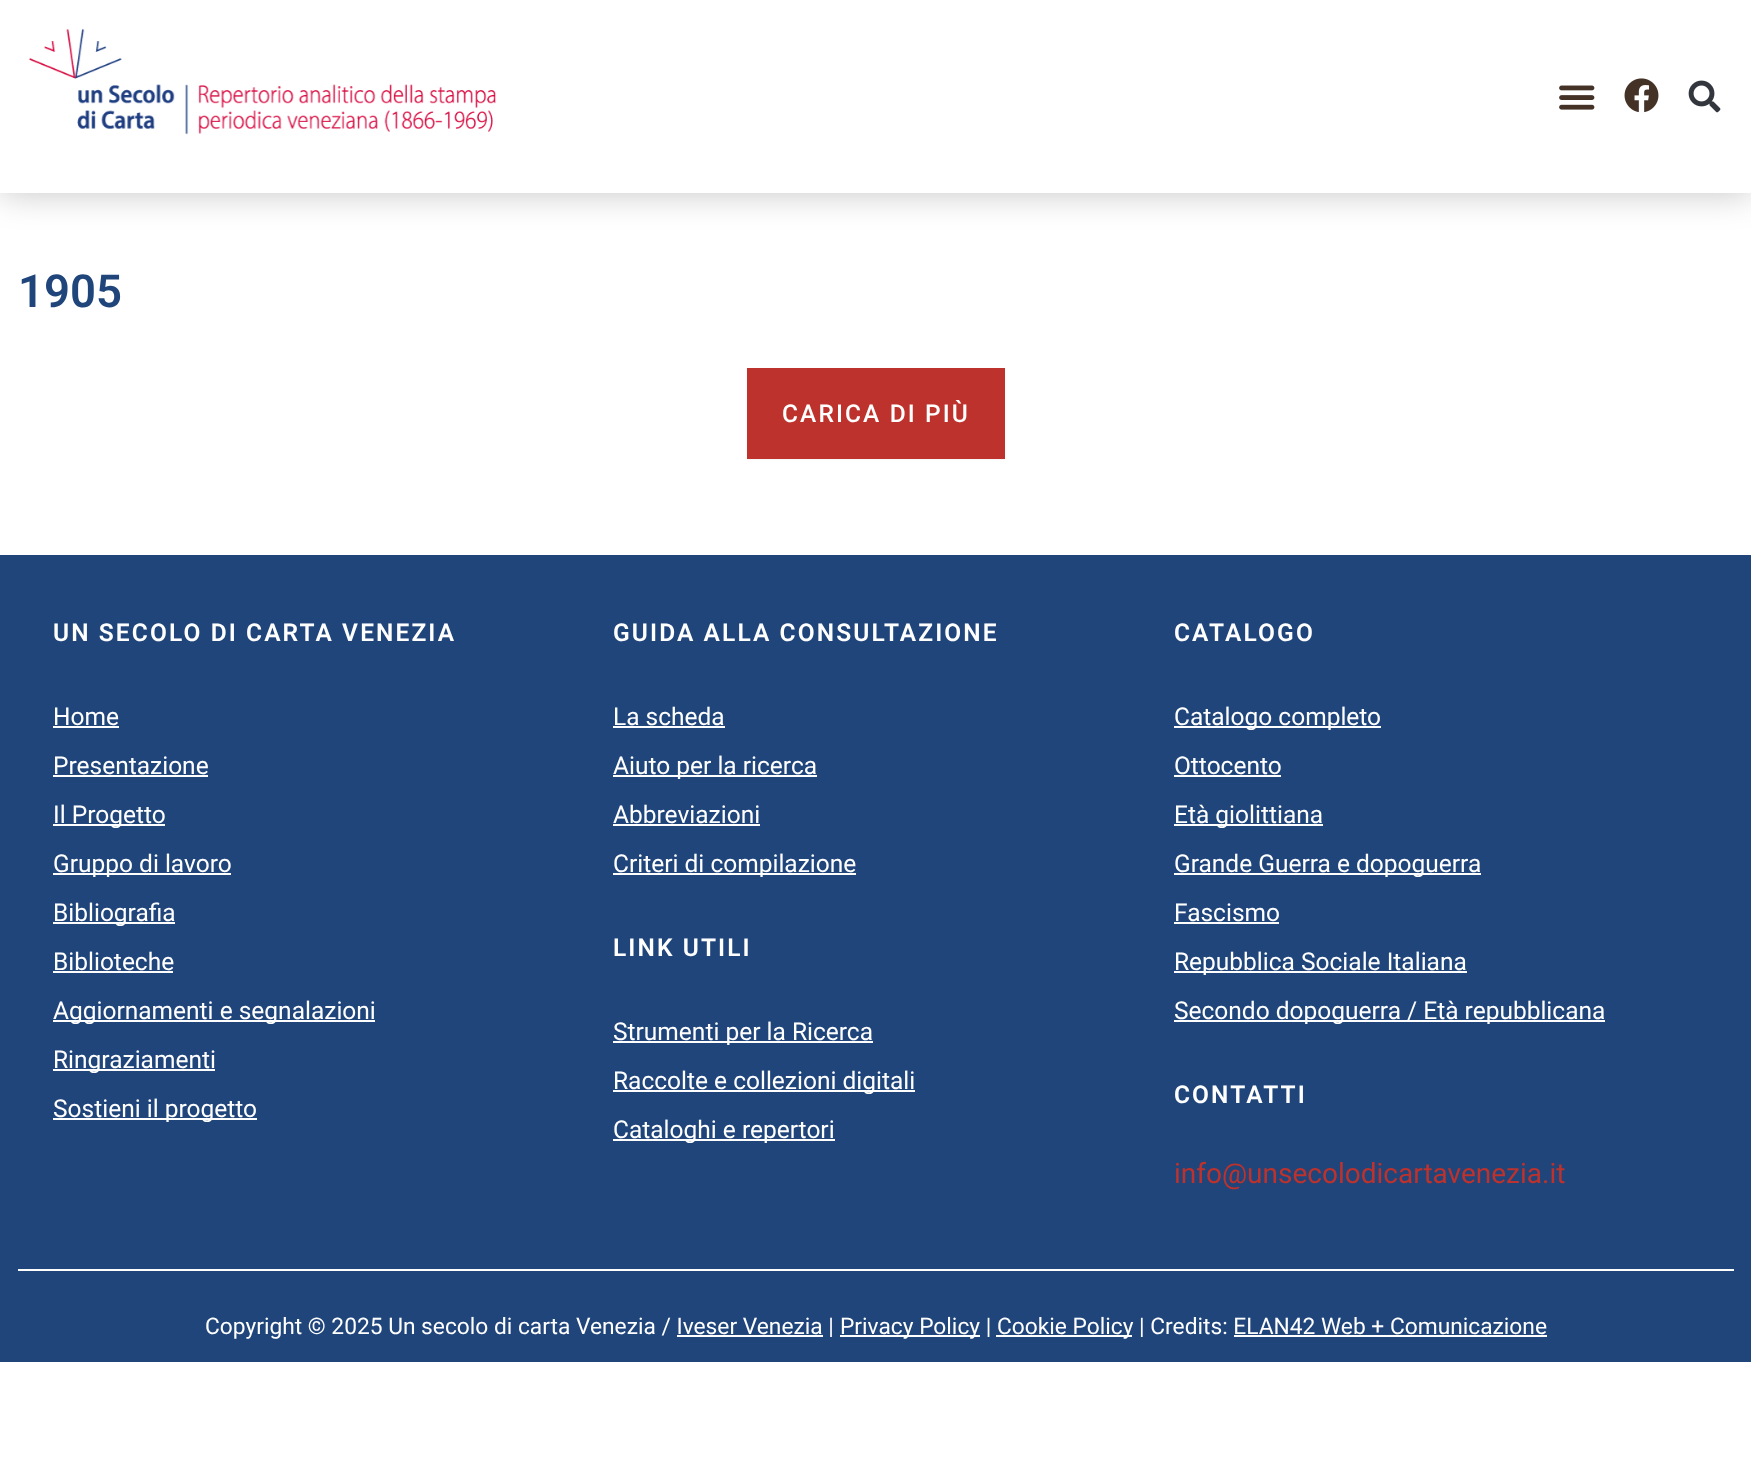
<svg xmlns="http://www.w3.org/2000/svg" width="1751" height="1463">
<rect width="100%" height="100%" fill="#fff"/>
<rect width="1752" height="193" fill="#0000003b" filter="blur(17.5px)"/>
<rect width="1751" height="193" fill="#fff"/>
<image x="29" y="29" width="467" height="106" href="media/1.png"/>
<image x="1559" y="85" width="36" height="25" href="media/2.png"/>
<image x="1624" y="78" width="35" height="35" href="media/3.png"/>
<image x="1688" y="80" width="33" height="33" href="media/4.png"/>
<text x="18" y="307" style="font-family:Roboto;font-size:45.5px;font-weight:600;fill:#1f457b">1905</text>
<rect x="747" y="369" width="258" height="91" fill="#0000000a" filter="blur(1px)"/>
<rect x="747" y="368" width="258" height="91" fill="#bd322c"/>
<text x="782" y="422" style="font-family:Roboto;font-size:24.5px;font-weight:500;letter-spacing:2.1px;fill:#fff">CARICA DI PIÙ</text>
<rect y="555" width="1751" height="807" fill="#1f457b"/>
<text x="53" y="641" style="font-family:Roboto;font-size:24.5px;font-weight:600;letter-spacing:2.1px;fill:#fff">UN SECOLO DI CARTA VENEZIA</text>
<text x="53" y="725" style="font-family:Roboto;font-size:24.5px;fill:#fff">Home</text>
<rect x="53" y="726" width="66" height="2" fill="#fff"/>
<text x="53" y="774" style="font-family:Roboto;font-size:24.5px;fill:#fff">Presentazione</text>
<rect x="53" y="775" width="155" height="2" fill="#fff"/>
<rect x="53" y="824" width="112" height="2" fill="#fff"/>
<text x="53" y="823" style="font-family:Roboto;font-size:24.5px;fill:#fff">Il Progetto</text>
<rect x="53" y="873" width="178" height="2" fill="#fff"/>
<text x="53" y="872" style="font-family:Roboto;font-size:24.5px;fill:#fff">Gruppo di lavoro</text>
<rect x="53" y="922" width="122" height="2" fill="#fff"/>
<text x="53" y="921" style="font-family:Roboto;font-size:24.5px;fill:#fff">Bibliografia</text>
<text x="53" y="970" style="font-family:Roboto;font-size:24.5px;fill:#fff">Biblioteche</text>
<rect x="53" y="971" width="120" height="2" fill="#fff"/>
<rect x="53" y="1020" width="322" height="2" fill="#fff"/>
<text x="53" y="1019" style="font-family:Roboto;font-size:24.5px;fill:#fff">Aggiornamenti e segnalazioni</text>
<rect x="53" y="1069" width="162" height="2" fill="#fff"/>
<text x="53" y="1068" style="font-family:Roboto;font-size:24.5px;fill:#fff">Ringraziamenti</text>
<rect x="53" y="1118" width="204" height="2" fill="#fff"/>
<text x="53" y="1117" style="font-family:Roboto;font-size:24.5px;fill:#fff">Sostieni il progetto</text>
<text x="613" y="641" style="font-family:Roboto;font-size:24.5px;font-weight:600;letter-spacing:2.1px;fill:#fff">GUIDA ALLA CONSULTAZIONE</text>
<text x="613" y="725" style="font-family:Roboto;font-size:24.5px;fill:#fff">La scheda</text>
<rect x="613" y="726" width="112" height="2" fill="#fff"/>
<rect x="613" y="775" width="204" height="2" fill="#fff"/>
<text x="613" y="774" style="font-family:Roboto;font-size:24.5px;fill:#fff">Aiuto per la ricerca</text>
<text x="613" y="823" style="font-family:Roboto;font-size:24.5px;fill:#fff">Abbreviazioni</text>
<rect x="613" y="824" width="147" height="2" fill="#fff"/>
<rect x="613" y="873" width="243" height="2" fill="#fff"/>
<text x="613" y="872" style="font-family:Roboto;font-size:24.5px;fill:#fff">Criteri di compilazione</text>
<text x="613" y="956" style="font-family:Roboto;font-size:24.5px;font-weight:600;letter-spacing:2.1px;fill:#fff">LINK UTILI</text>
<rect x="613" y="1041" width="260" height="2" fill="#fff"/>
<text x="613" y="1040" style="font-family:Roboto;font-size:24.5px;fill:#fff">Strumenti per la Ricerca</text>
<rect x="613" y="1090" width="302" height="2" fill="#fff"/>
<text x="613" y="1089" style="font-family:Roboto;font-size:24.5px;fill:#fff">Raccolte e collezioni digitali</text>
<rect x="613" y="1139" width="222" height="2" fill="#fff"/>
<text x="613" y="1138" style="font-family:Roboto;font-size:24.5px;fill:#fff">Cataloghi e repertori</text>
<text x="1174" y="641" style="font-family:Roboto;font-size:24.5px;font-weight:600;letter-spacing:2.1px;fill:#fff">CATALOGO</text>
<rect x="1174" y="726" width="207" height="2" fill="#fff"/>
<text x="1174" y="725" style="font-family:Roboto;font-size:24.5px;fill:#fff">Catalogo completo</text>
<text x="1174" y="774" style="font-family:Roboto;font-size:24.5px;fill:#fff">Ottocento</text>
<rect x="1174" y="775" width="107" height="2" fill="#fff"/>
<rect x="1174" y="824" width="149" height="2" fill="#fff"/>
<text x="1174" y="823" style="font-family:Roboto;font-size:24.5px;fill:#fff">Età giolittiana</text>
<rect x="1174" y="873" width="307" height="2" fill="#fff"/>
<text x="1174" y="872" style="font-family:Roboto;font-size:24.5px;fill:#fff">Grande Guerra e dopoguerra</text>
<text x="1174" y="921" style="font-family:Roboto;font-size:24.5px;fill:#fff">Fascismo</text>
<rect x="1174" y="922" width="105" height="2" fill="#fff"/>
<rect x="1174" y="971" width="293" height="2" fill="#fff"/>
<text x="1174" y="970" style="font-family:Roboto;font-size:24.5px;fill:#fff">Repubblica Sociale Italiana</text>
<rect x="1174" y="1020" width="431" height="2" fill="#fff"/>
<text x="1174" y="1019" style="font-family:Roboto;font-size:24.5px;fill:#fff">Secondo dopoguerra / Età repubblicana</text>
<text x="1174" y="1103" style="font-family:Roboto;font-size:24.5px;font-weight:600;letter-spacing:2.1px;fill:#fff">CONTATTI</text>
<text x="1174" y="1183" style="font-family:Roboto;font-size:28px;fill:#bd322c">info@unsecolodicartavenezia.it</text>
<rect x="18" y="1269" width="1716" height="2" fill="#fff"/>
<text x="205" y="1334" style="font-family:Roboto;font-size:22.75px;fill:#fff">Copyright © 2025 Un secolo di carta Venezia / Iveser Venezia |</text>
<rect x="840" y="1335" width="140" height="2" fill="#fff"/>
<text x="840" y="1334" style="font-family:Roboto;font-size:22.75px;fill:#fff">Privacy Policy |</text>
<rect x="996" y="1335" width="136" height="2" fill="#fff"/>
<text x="997" y="1334" style="font-family:Roboto;font-size:22.75px;fill:#fff">Cookie Policy | Credits: ELAN42 Web + Comunicazione</text>
<rect x="677" y="1335" width="146" height="2" fill="#fff"/>
<rect x="1234" y="1335" width="313" height="2" fill="#fff"/>
</svg>
